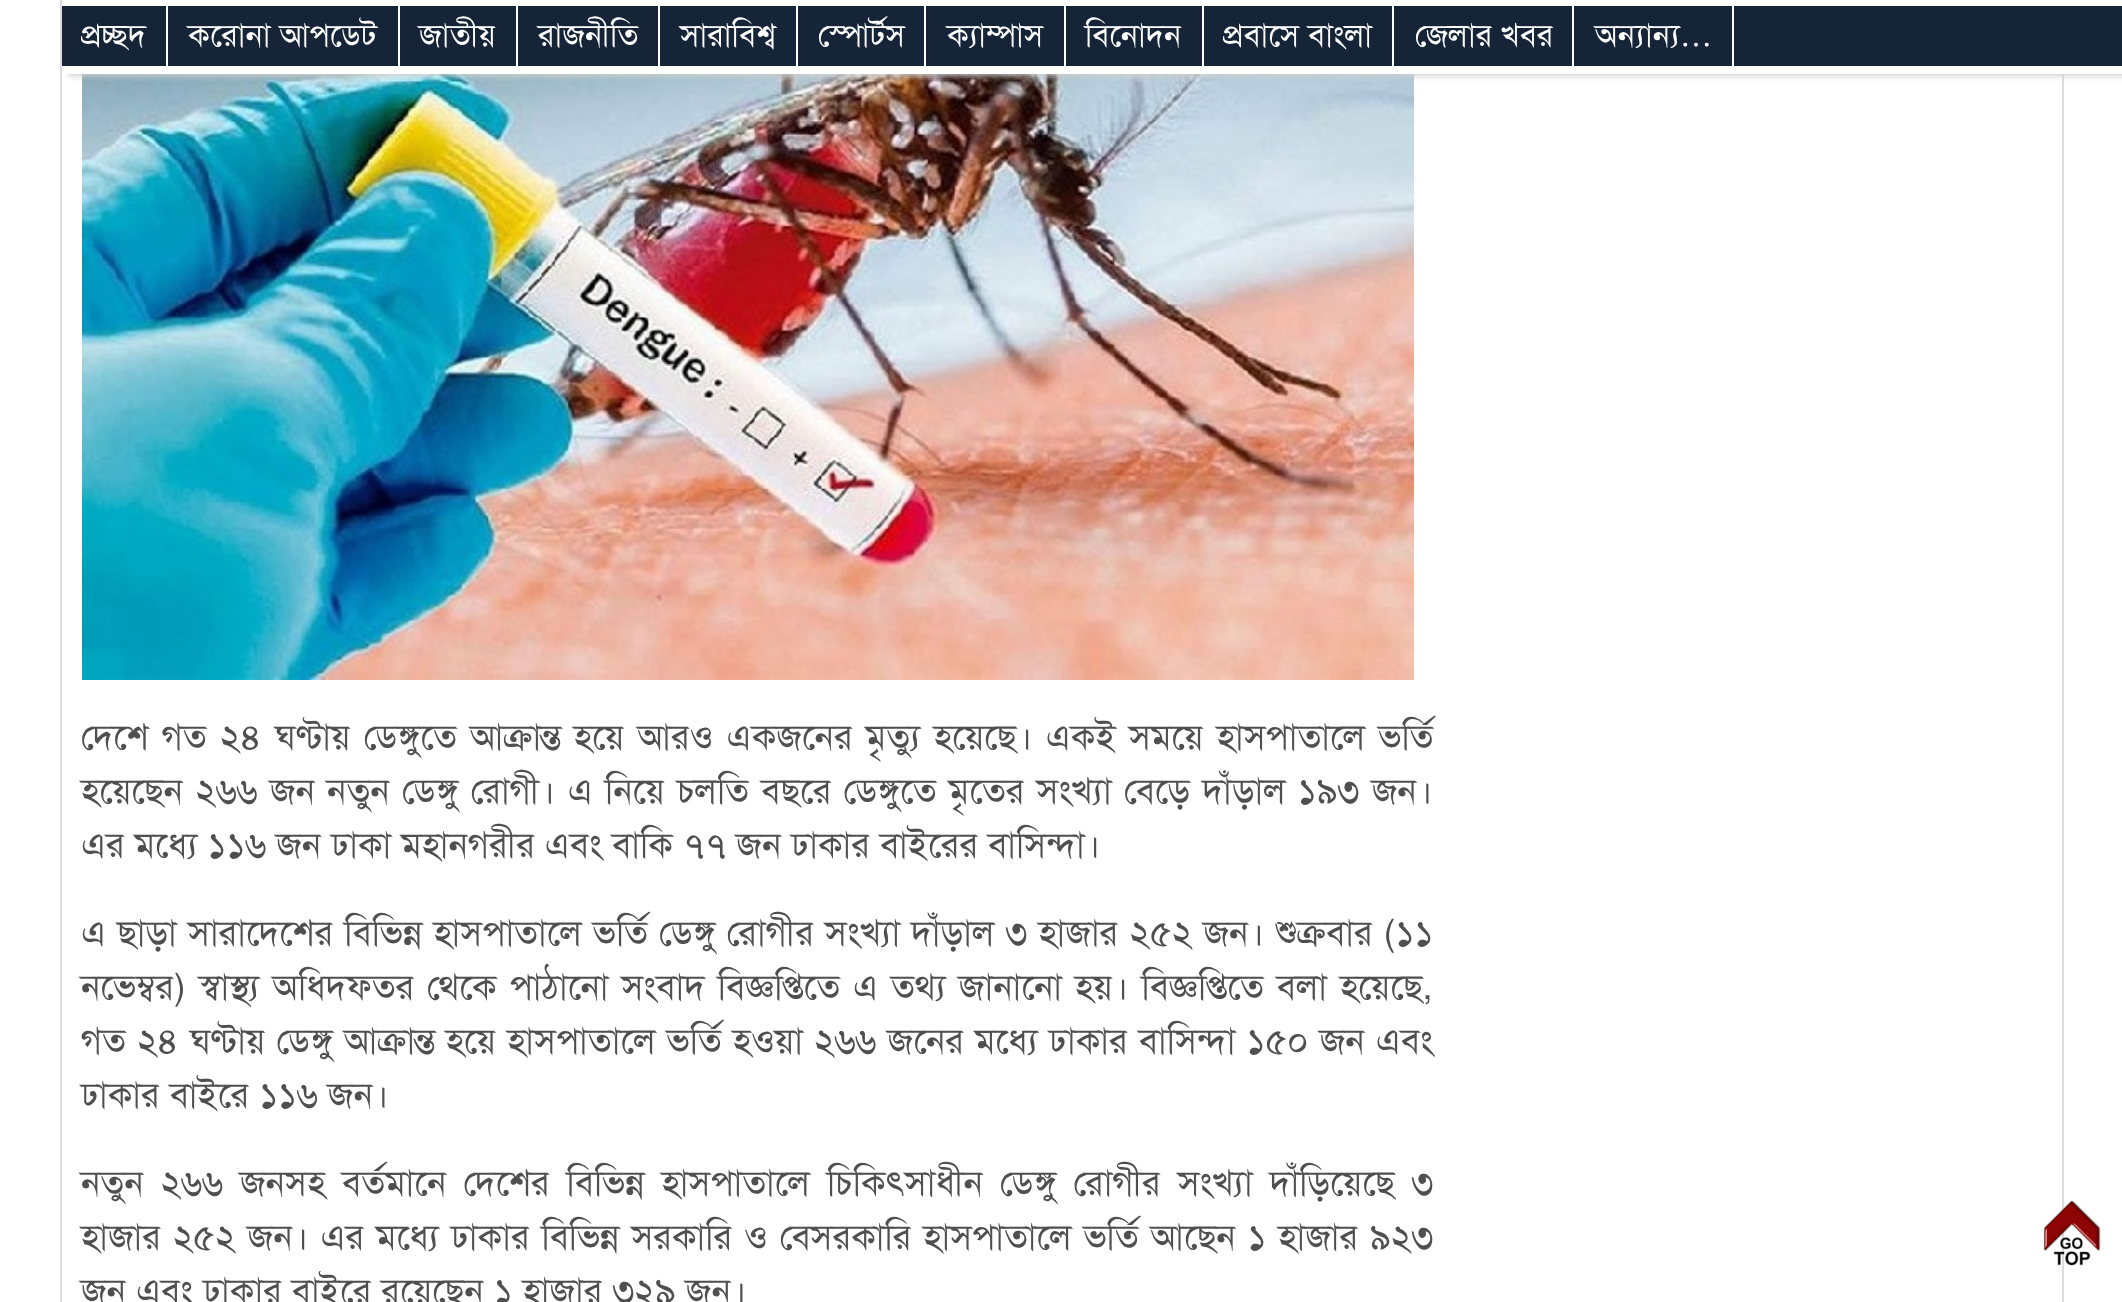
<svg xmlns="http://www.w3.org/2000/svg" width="2122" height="1302">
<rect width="100%" height="100%" fill="#fff"/>
<rect x="61" y="-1" width="2002" height="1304" fill="none" stroke="#ddd" stroke-width="2"/>
<image x="82" y="74" width="1332" height="606" href="media/1.png"/>
<rect x="68" y="12" width="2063" height="64" fill="#d0d0d0" filter="blur(3px)"/>
<rect x="63" width="2059" height="74" fill="#fff"/>
<rect x="62" y="6" width="2060" height="60" fill="#152437"/>
<rect x="166" y="6" width="2" height="60" fill="#fff"/>
<text x="81" y="46" style="font-family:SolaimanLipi;font-size:32px;fill:#fff">প্রচ্ছদ</text>
<rect x="398" y="6" width="2" height="60" fill="#fff"/>
<text x="188" y="46" style="font-family:SolaimanLipi;font-size:32px;fill:#fff">করোনা আপডেট</text>
<rect x="516" y="6" width="2" height="60" fill="#fff"/>
<text x="419" y="46" style="font-family:SolaimanLipi;font-size:32px;fill:#fff">জাতীয়</text>
<rect x="658" y="6" width="2" height="60" fill="#fff"/>
<text x="538" y="46" style="font-family:SolaimanLipi;font-size:32px;fill:#fff">রাজনীতি</text>
<rect x="796" y="6" width="2" height="60" fill="#fff"/>
<text x="680" y="46" style="font-family:SolaimanLipi;font-size:32px;fill:#fff">সারাবিশ্ব</text>
<rect x="924" y="6" width="2" height="60" fill="#fff"/>
<text x="818" y="46" style="font-family:SolaimanLipi;font-size:32px;fill:#fff">স্পোর্টস</text>
<rect x="1064" y="6" width="2" height="60" fill="#fff"/>
<text x="947" y="46" style="font-family:SolaimanLipi;font-size:32px;fill:#fff">ক্যাম্পাস</text>
<rect x="1202" y="6" width="2" height="60" fill="#fff"/>
<text x="1085" y="46" style="font-family:SolaimanLipi;font-size:32px;fill:#fff">বিনোদন</text>
<rect x="1392" y="6" width="2" height="60" fill="#fff"/>
<text x="1223" y="46" style="font-family:SolaimanLipi;font-size:32px;fill:#fff">প্রবাসে বাংলা</text>
<rect x="1572" y="6" width="2" height="60" fill="#fff"/>
<text x="1415" y="46" style="font-family:SolaimanLipi;font-size:32px;fill:#fff">জেলার খবর</text>
<rect x="1732" y="6" width="2" height="60" fill="#fff"/>
<text x="1595" y="46" style="font-family:SolaimanLipi;font-size:32px;fill:#fff">অন্যান্য</text>
<text x="1680" y="46" style="font-family:Liberation Serif;font-size:32px;fill:#fff">…</text>
<text x="81" y="749" word-spacing="3.25" style="font-family:SolaimanLipi;font-size:36px;fill:#4f4f4f">দেশে গত ২৪ ঘণ্টায় ডেঙ্গুতে আক্রান্ত হয়ে আরও একজনের মৃত্যু হয়েছে। একই সময়ে হাসপাতালে ভর্তি</text>
<text x="81" y="803" word-spacing="2.25" style="font-family:SolaimanLipi;font-size:36px;fill:#4f4f4f">হয়েছেন ২৬৬ জন নতুন ডেঙ্গু রোগী। এ নিয়ে চলতি বছরে ডেঙ্গুতে মৃতের সংখ্যা বেড়ে দাঁড়াল ১৯৩ জন।</text>
<text x="81" y="857" style="font-family:SolaimanLipi;font-size:36px;fill:#4f4f4f">এর মধ্যে ১১৬ জন ঢাকা মহানগরীর এবং বাকি ৭৭ জন ঢাকার বাইরের বাসিন্দা।</text>
<text x="81" y="945" word-spacing="1.1" style="font-family:SolaimanLipi;font-size:36px;fill:#4f4f4f">এ ছাড়া সারাদেশের বিভিন্ন হাসপাতালে ভর্তি ডেঙ্গু রোগীর সংখ্যা দাঁড়াল ৩ হাজার ২৫২ জন। শুক্রবার (১১</text>
<text x="81" y="999" word-spacing="2.9" style="font-family:SolaimanLipi;font-size:36px;fill:#4f4f4f">নভেম্বর) স্বাস্থ্য অধিদফতর থেকে পাঠানো সংবাদ বিজ্ঞপ্তিতে এ তথ্য জানানো হয়। বিজ্ঞপ্তিতে বলা হয়েছে,</text>
<text x="81" y="1053" word-spacing="1.1" style="font-family:SolaimanLipi;font-size:36px;fill:#4f4f4f">গত ২৪ ঘণ্টায় ডেঙ্গু আক্রান্ত হয়ে হাসপাতালে ভর্তি হওয়া ২৬৬ জনের মধ্যে ঢাকার বাসিন্দা ১৫০ জন এবং</text>
<text x="81" y="1107" style="font-family:SolaimanLipi;font-size:36px;fill:#4f4f4f">ঢাকার বাইরে ১১৬ জন।</text>
<text x="81" y="1195" word-spacing="7" style="font-family:SolaimanLipi;font-size:36px;fill:#4f4f4f">নতুন ২৬৬ জনসহ বর্তমানে দেশের বিভিন্ন হাসপাতালে চিকিৎসাধীন ডেঙ্গু রোগীর সংখ্যা দাঁড়িয়েছে ৩</text>
<text x="81" y="1249" word-spacing="1.9" style="font-family:SolaimanLipi;font-size:36px;fill:#4f4f4f">হাজার ২৫২ জন। এর মধ্যে ঢাকার বিভিন্ন সরকারি ও বেসরকারি হাসপাতালে ভর্তি আছেন ১ হাজার ৯২৩</text>
<text x="81" y="1303" style="font-family:SolaimanLipi;font-size:36px;fill:#4f4f4f">জন এবং ঢাকার বাইরে রয়েছেন ১ হাজার ৩২৯ জন।</text>
<image x="2043" y="1200" width="58" height="66" href="media/2.png"/>
</svg>
